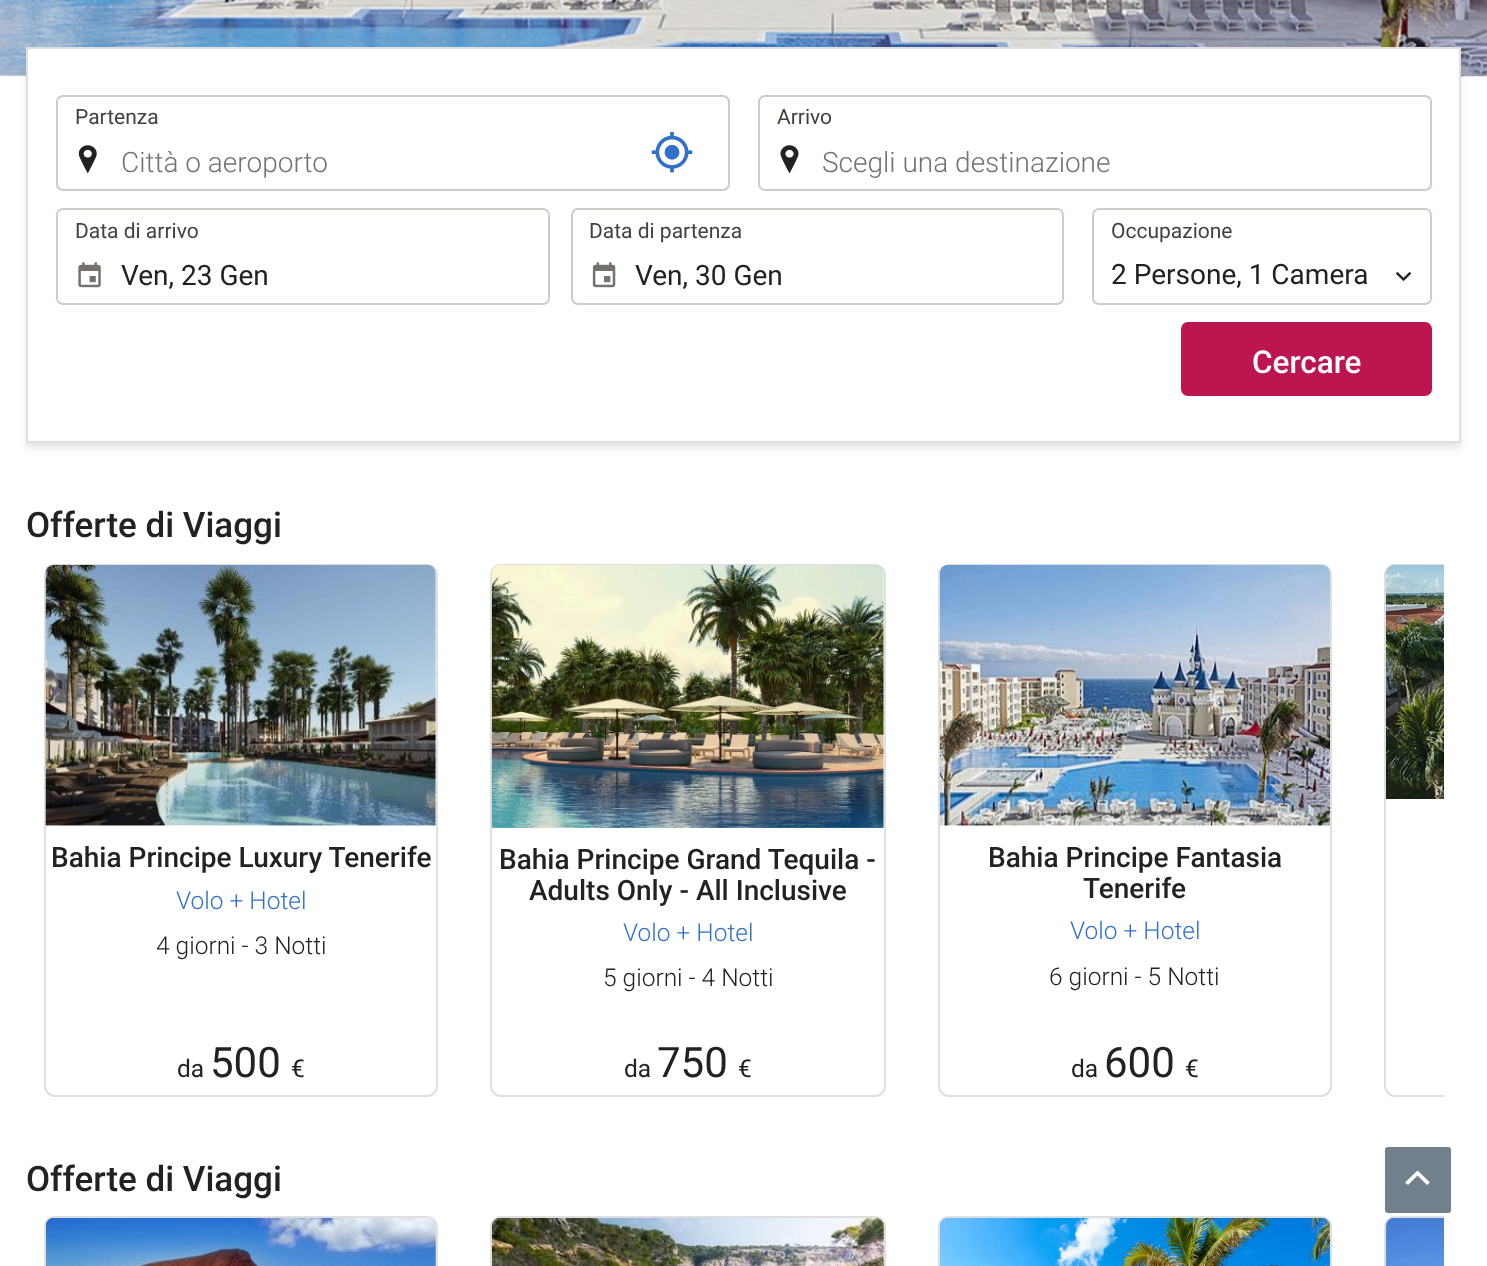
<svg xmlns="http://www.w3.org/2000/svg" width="1487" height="1266">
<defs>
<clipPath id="clip1"><rect x="44" y="564" width="1400" height="533"/></clipPath>
<clipPath id="clip2"><rect x="44" y="1216" width="1400" height="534"/></clipPath>
</defs>
<rect width="100%" height="100%" fill="#fff"/>
<image x="0" y="0" width="1487" height="77" href="media/1.png"/>
<rect x="26" y="53" width="1435" height="395" fill="#0000001a" filter="blur(3.5px)"/>
<rect x="27" y="48" width="1433" height="394" fill="#fff" stroke="#dfdfdf" stroke-width="2"/>
<image x="78" y="145" width="19" height="29" href="media/2.png"/>
<rect x="57" y="96" width="672" height="94" rx="6" fill="none" stroke="#d0cbc9" stroke-width="2"/>
<text x="75" y="124" style="font-family:Roboto;font-size:21px;fill:#46403c">Partenza</text>
<text x="121" y="172" style="font-family:Roboto;font-size:28px;font-weight:300;fill:#74716e">Città o aeroporto</text>
<image x="651" y="132" width="42" height="41" href="media/3.png"/>
<image x="780" y="145" width="19" height="29" href="media/4.png"/>
<rect x="759" y="96" width="672" height="94" rx="6" fill="none" stroke="#d0cbc9" stroke-width="2"/>
<text x="777" y="124" style="font-family:Roboto;font-size:21px;fill:#46403c">Arrivo</text>
<text x="822" y="172" style="font-family:Roboto;font-size:28px;font-weight:300;fill:#74716e">Scegli una destinazione</text>
<image x="78" y="262" width="23" height="26" href="media/5.png"/>
<rect x="57" y="209" width="492" height="95" rx="6" fill="none" stroke="#d0cbc9" stroke-width="2"/>
<text x="75" y="238" style="font-family:Roboto;font-size:21px;fill:#46403c">Data di arrivo</text>
<text x="121" y="285" style="font-family:Roboto;font-size:28px;fill:#222">Ven, 23 Gen</text>
<image x="592" y="262" width="24" height="26" href="media/6.png"/>
<rect x="572" y="209" width="491" height="95" rx="6" fill="none" stroke="#d0cbc9" stroke-width="2"/>
<text x="589" y="238" style="font-family:Roboto;font-size:21px;fill:#46403c">Data di partenza</text>
<text x="635" y="285" style="font-family:Roboto;font-size:28px;fill:#222">Ven, 30 Gen</text>
<rect x="1093" y="209" width="338" height="95" rx="6" fill="none" stroke="#d0cbc9" stroke-width="2"/>
<text x="1111" y="238" style="font-family:Roboto;font-size:21px;fill:#46403c">Occupazione</text>
<text x="1111" y="284" style="font-family:Roboto;font-size:28px;fill:#222">2 Persone, 1 Camera</text>
<image x="1395" y="271" width="17" height="11" href="media/7.png"/>
<rect x="1181" y="322" width="251" height="74" rx="7" fill="#bd1550"/>
<text x="1252" y="373" style="font-family:Roboto;font-size:31.5px;font-weight:500;fill:#fff">Cercare</text>
<text x="26" y="537" style="font-family:Roboto;font-size:35px;font-weight:500;fill:#222">Offerte di Viaggi</text>
<rect x="45" y="565" width="392" height="531" rx="10" fill="none" stroke="#dfdfdf" stroke-width="2"/>
<image x="45" y="564" width="391" height="262" href="media/8.png"/>
<text x="51" y="867" style="font-family:Roboto;font-size:28px;font-weight:500;fill:#222">Bahia Principe Luxury Tenerife</text>
<text x="176" y="909" style="font-family:Roboto;font-size:24.5px;font-weight:300;fill:#3171c9">Volo + Hotel</text>
<text x="156" y="954" style="font-family:Roboto;font-size:24.5px;font-weight:300;fill:#222">4 giorni - 3 Notti</text>
<text x="177" y="1077" style="font-family:Roboto;font-size:24.5px;fill:#222">da</text>
<text x="210" y="1077" style="font-family:Roboto;font-size:42px;fill:#222">500</text>
<text x="291" y="1077" style="font-family:Roboto;font-size:24.5px;fill:#222">€</text>
<rect x="491" y="565" width="394" height="531" rx="10" fill="none" stroke="#dfdfdf" stroke-width="2"/>
<image x="491" y="564" width="393" height="264" href="media/9.png"/>
<text x="499" y="869" style="font-family:Roboto;font-size:28px;font-weight:500;fill:#222">Bahia Principe Grand Tequila -</text>
<text x="529" y="900" style="font-family:Roboto;font-size:28px;font-weight:500;fill:#222">Adults Only - All Inclusive</text>
<text x="623" y="941" style="font-family:Roboto;font-size:24.5px;font-weight:300;fill:#3171c9">Volo + Hotel</text>
<text x="603" y="986" style="font-family:Roboto;font-size:24.5px;font-weight:300;fill:#222">5 giorni - 4 Notti</text>
<text x="624" y="1077" style="font-family:Roboto;font-size:24.5px;fill:#222">da</text>
<text x="657" y="1077" style="font-family:Roboto;font-size:42px;fill:#222">750</text>
<text x="738" y="1077" style="font-family:Roboto;font-size:24.5px;fill:#222">€</text>
<rect x="939" y="565" width="392" height="531" rx="10" fill="none" stroke="#dfdfdf" stroke-width="2"/>
<image x="939" y="564" width="391" height="262" href="media/10.png"/>
<text x="988" y="867" style="font-family:Roboto;font-size:28px;font-weight:500;fill:#222">Bahia Principe Fantasia</text>
<text x="1083" y="898" style="font-family:Roboto;font-size:28px;font-weight:500;fill:#222">Tenerife</text>
<text x="1070" y="939" style="font-family:Roboto;font-size:24.5px;font-weight:300;fill:#3171c9">Volo + Hotel</text>
<text x="1049" y="985" style="font-family:Roboto;font-size:24.5px;font-weight:300;fill:#222">6 giorni - 5 Notti</text>
<text x="1071" y="1077" style="font-family:Roboto;font-size:24.5px;fill:#222">da</text>
<text x="1104" y="1077" style="font-family:Roboto;font-size:42px;fill:#222">600</text>
<text x="1185" y="1077" style="font-family:Roboto;font-size:24.5px;fill:#222">€</text>
<g clip-path="url(#clip1)">
<rect x="1385" y="565" width="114" height="531" rx="10" fill="none" stroke="#dfdfdf" stroke-width="2"/>
</g>
<image x="1386" y="565" width="58" height="234" href="media/11.png"/>
<text x="26" y="1191" style="font-family:Roboto;font-size:35px;font-weight:500;fill:#222">Offerte di Viaggi</text>
<rect x="45" y="1217" width="392" height="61" rx="10" fill="none" stroke="#dfdfdf" stroke-width="2"/>
<image x="46" y="1218" width="390" height="48" href="media/12.png"/>
<rect x="491" y="1217" width="394" height="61" rx="10" fill="none" stroke="#dfdfdf" stroke-width="2"/>
<image x="492" y="1218" width="392" height="48" href="media/13.png"/>
<rect x="939" y="1217" width="392" height="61" rx="10" fill="none" stroke="#dfdfdf" stroke-width="2"/>
<image x="940" y="1218" width="390" height="48" href="media/14.png"/>
<g clip-path="url(#clip2)">
<rect x="1385" y="1217" width="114" height="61" rx="10" fill="none" stroke="#dfdfdf" stroke-width="2"/>
</g>
<image x="1386" y="1218" width="58" height="48" href="media/15.png"/>
<rect x="1384" y="1146" width="68" height="68" rx="4" fill="#72808c" stroke="#fff" stroke-width="2"/>
<path d="M1427 1185l-9.5-9.5l-9.5 9.5l-3-2.5l12.5-12l12.5 12z" fill="#fff" fill-rule="evenodd"/>
</svg>
